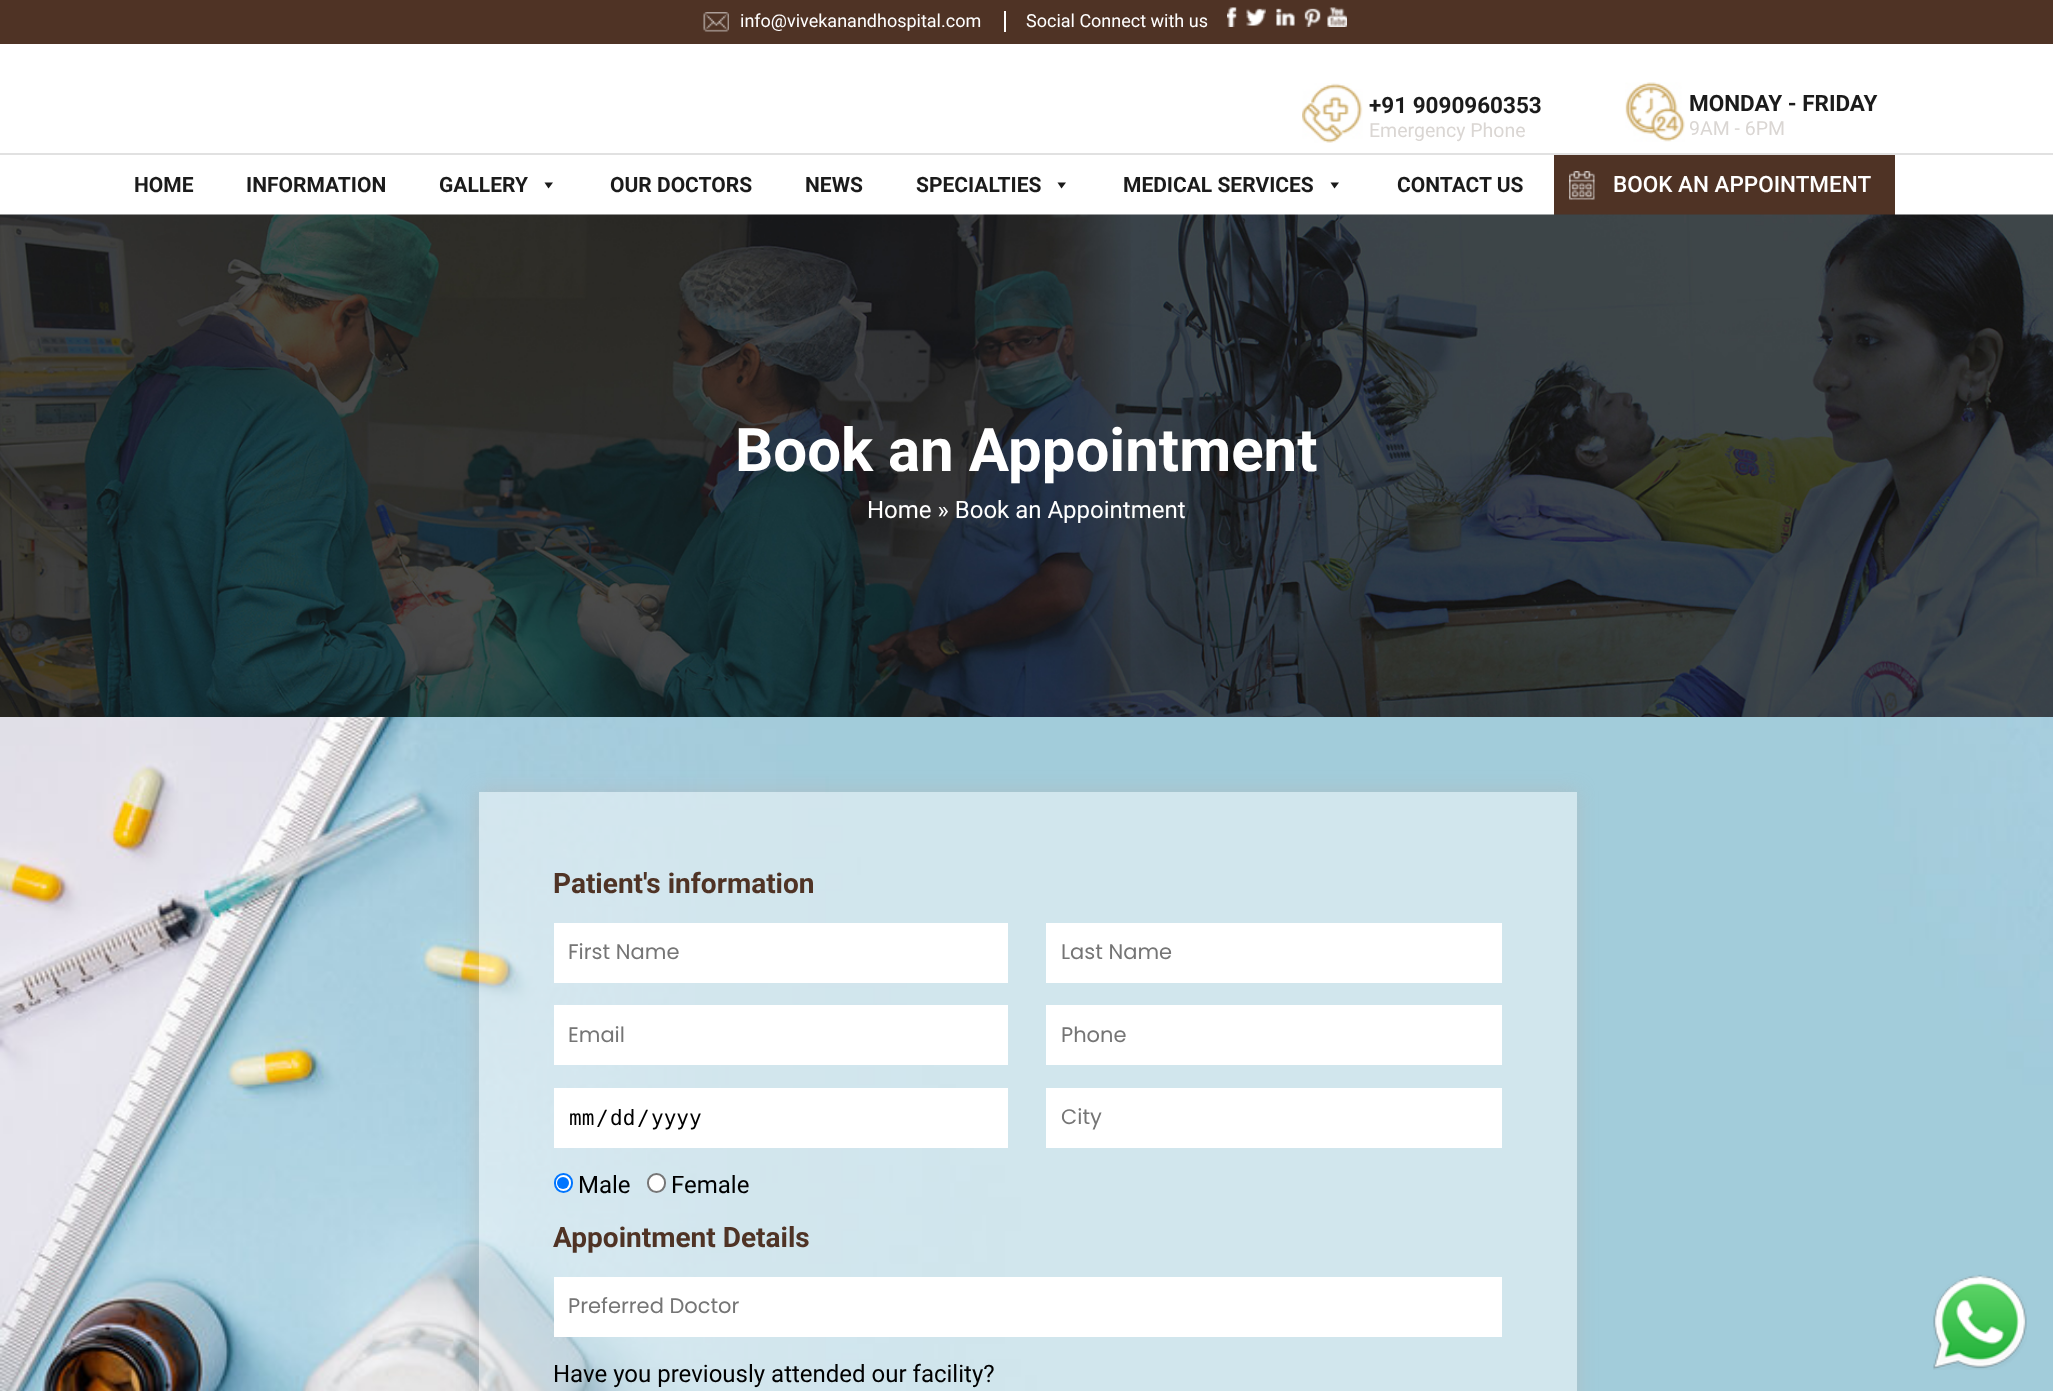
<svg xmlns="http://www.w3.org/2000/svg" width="2053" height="1391">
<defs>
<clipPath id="clip1"><path d="M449 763h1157v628h-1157zm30 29h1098v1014h-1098z" clip-rule="evenodd"/></clipPath>
</defs>
<rect width="100%" height="100%" fill="#fff"/>
<rect width="2053" height="44" fill="#4f3325"/>
<image x="703" y="12" width="26" height="20" href="media/1.png"/>
<rect x="1004" y="11" width="2" height="21" fill="#fff"/>
<text x="740" y="27" style="font-family:Roboto;font-size:18px;fill:#fff">info@vivekanandhospital.com</text>
<text x="1026" y="27" style="font-family:Roboto;font-size:18px;fill:#fff">Social Connect with us</text>
<image x="1227" y="7" width="10" height="20" href="media/2.png"/>
<image x="1246" y="8" width="20" height="18" href="media/3.png"/>
<image x="1276" y="8" width="19" height="18" href="media/4.png"/>
<image x="1304" y="8" width="17" height="19" href="media/5.png"/>
<image x="1327" y="7" width="20" height="20" href="media/6.png"/>
<rect y="153" width="2053" height="2" fill="#e1e1e1"/>
<image x="1302" y="83" width="61" height="60" href="media/7.png"/>
<text x="1369" y="113" style="font-family:Roboto;font-size:22.5px;font-weight:bold;fill:#1b1b1b">+91 9090960353</text>
<text x="1369" y="137" style="font-family:Roboto;font-size:19.5px;fill:#dad6d3">Emergency Phone</text>
<image x="1625" y="82" width="60" height="60" href="media/8.png"/>
<text x="1689" y="111" style="font-family:Roboto;font-size:22.5px;font-weight:bold;fill:#1b1b1b">MONDAY - FRIDAY</text>
<text x="1689" y="135" style="font-family:Roboto;font-size:19.5px;fill:#dad6d3">9AM - 6PM</text>
<text x="134" y="192" style="font-family:Roboto;font-size:21px;font-weight:bold;fill:#1b1b1b">HOME</text>
<text x="246" y="192" style="font-family:Roboto;font-size:21px;font-weight:bold;fill:#1b1b1b">INFORMATION</text>
<text x="439" y="192" style="font-family:Roboto;font-size:21px;font-weight:bold;fill:#1b1b1b">GALLERY</text>
<path d="M553 182.5l-4.5 6l-4-6z" fill="#1a1a1a"/>
<text x="610" y="192" style="font-family:Roboto;font-size:21px;font-weight:bold;fill:#1b1b1b">OUR DOCTORS</text>
<text x="805" y="192" style="font-family:Roboto;font-size:21px;font-weight:bold;fill:#1b1b1b">NEWS</text>
<text x="916" y="192" style="font-family:Roboto;font-size:21px;font-weight:bold;fill:#1b1b1b">SPECIALTIES</text>
<path d="M1066 182.5l-4.5 6l-4-6z" fill="#1a1a1a"/>
<text x="1123" y="192" style="font-family:Roboto;font-size:21px;font-weight:bold;fill:#1b1b1b">MEDICAL SERVICES</text>
<path d="M1339 182.5l-4.5 6l-4-6z" fill="#1a1a1a"/>
<text x="1397" y="192" style="font-family:Roboto;font-size:21px;font-weight:bold;fill:#1b1b1b">CONTACT US</text>
<rect x="1554" y="155" width="341" height="60" fill="#4f3325"/>
<image x="1569" y="171" width="26" height="29" href="media/9.png"/>
<text x="1613" y="192" style="font-family:Roboto;font-size:22.5px;font-weight:500;fill:#fff">BOOK AN APPOINTMENT</text>
<image x="0" y="214" width="2053" height="503" href="media/10.png"/>
<text x="735" y="471" style="font-family:Roboto;font-size:60px;font-weight:bold;fill:#fff">Book an Appointment</text>
<text x="867" y="518" style="font-family:Roboto;font-size:24px;fill:#fff">Home » Book an Appointment</text>
<image x="0" y="717" width="2053" height="674" href="media/11.png"/>
<g clip-path="url(#clip1)">
<rect x="477" y="791" width="1101" height="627" fill="#b5b5b580" filter="blur(9px)"/>
</g>
<rect x="479" y="792" width="1098" height="599" fill="#ffffff80"/>
<text x="553" y="893" style="font-family:Roboto;font-size:28px;font-weight:bold;fill:#4f3325">Patient's information</text>
<rect x="554" y="923" width="454" height="60" fill="#fff"/>
<text x="568" y="959" style="font-family:Poppins;font-size:21px;fill:#757575">First Name</text>
<rect x="1046" y="923" width="456" height="60" fill="#fff"/>
<text x="1061" y="959" style="font-family:Poppins;font-size:21px;fill:#757575">Last Name</text>
<rect x="554" y="1005" width="454" height="60" fill="#fff"/>
<text x="568" y="1042" style="font-family:Poppins;font-size:21px;fill:#757575">Email</text>
<rect x="1046" y="1005" width="456" height="60" fill="#fff"/>
<text x="1061" y="1042" style="font-family:Poppins;font-size:21px;fill:#757575">Phone</text>
<rect x="554" y="1088" width="454" height="60" fill="#fff"/>
<text x="569" y="1125" style="font-family:DejaVu Sans Mono;font-size:21px;fill:#000">mm</text>
<text x="596" y="1125" style="font-family:DejaVu Sans Mono;font-size:21px;fill:#000">/</text>
<text x="610" y="1125" style="font-family:DejaVu Sans Mono;font-size:21px;fill:#000">dd</text>
<text x="637" y="1125" style="font-family:DejaVu Sans Mono;font-size:21px;fill:#000">/</text>
<text x="651" y="1125" style="font-family:DejaVu Sans Mono;font-size:21px;fill:#000">yyyy</text>
<rect x="1046" y="1088" width="456" height="60" fill="#fff"/>
<text x="1061" y="1124" style="font-family:Poppins;font-size:21px;fill:#757575">City</text>
<rect x="555" y="1174" width="17" height="18" rx="8.5" fill="#fff" stroke="#0075ff" stroke-width="2"/>
<circle cx="563" cy="1183" r="6" fill="#0075ff"/>
<text x="578" y="1193" style="font-family:Roboto;font-size:24px;fill:#000">Male</text>
<rect x="648" y="1174" width="17" height="18" rx="8.5" fill="#fff" stroke="#767676" stroke-width="2"/>
<text x="671" y="1193" style="font-family:Roboto;font-size:24px;fill:#000">Female</text>
<text x="553" y="1247" style="font-family:Roboto;font-size:28px;font-weight:bold;fill:#4f3325">Appointment Details</text>
<rect x="554" y="1277" width="948" height="60" fill="#fff"/>
<text x="568" y="1313" style="font-family:Poppins;font-size:21px;fill:#757575">Preferred Doctor</text>
<text x="553" y="1382" style="font-family:Roboto;font-size:24px;fill:#000">Have you previously attended our facility?</text>
<image x="1933" y="1274" width="94" height="96" href="media/12.png"/>
</svg>
